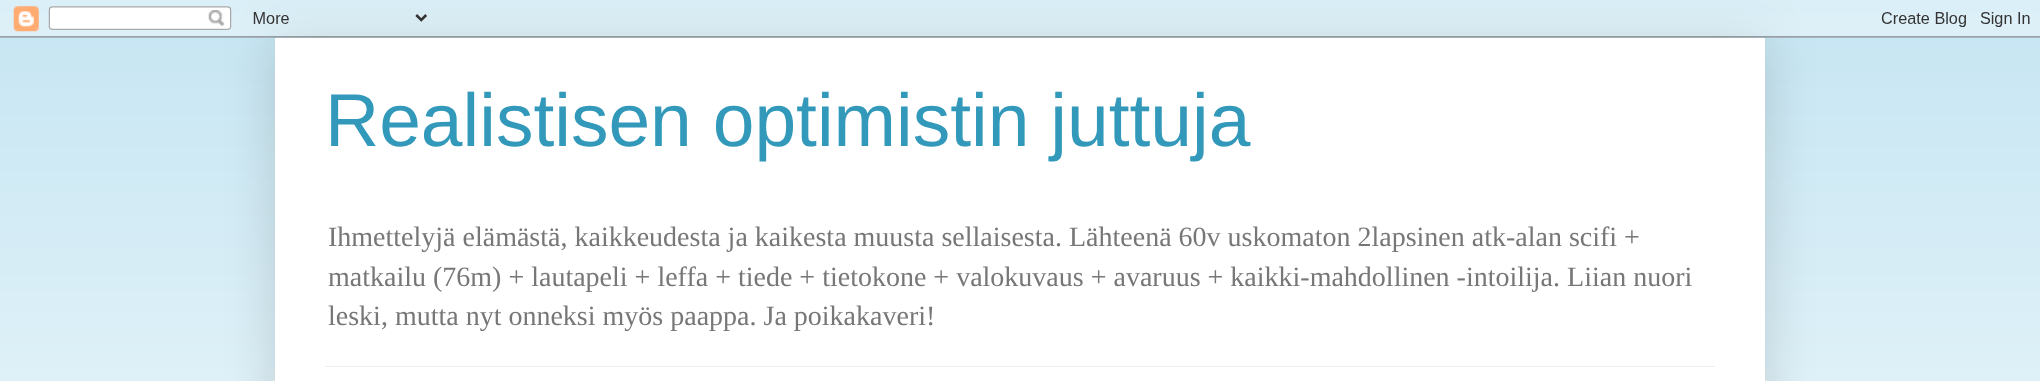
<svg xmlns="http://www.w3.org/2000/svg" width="2040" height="381">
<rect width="100%" height="100%" fill="#c2e4f2"/>
<image x="0" y="13" width="2040" height="368" href="media/2.png"/>
<rect x="275" y="38" width="1490" height="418" fill="#00000026" filter="blur(25px)"/>
<image x="0" y="0" width="2040" height="38" href="media/1.png"/>
<rect x="275" y="38" width="1490" height="343" fill="#fff"/>
<text x="325" y="146" style="font-family:Liberation Sans;font-size:75px;fill:#39b">Realistisen optimistin juttuja</text>
<text x="328" y="246" style="font-family:Liberation Serif;font-size:28px;fill:#777">Ihmettelyjä elämästä, kaikkeudesta ja kaikesta muusta sellaisesta. Lähteenä 60v uskomaton 2lapsinen atk-alan scifi +</text>
<text x="328" y="286" style="font-family:Liberation Serif;font-size:28px;fill:#777">matkailu (76m) + lautapeli + leffa + tiede + tietokone + valokuvaus + avaruus + kaikki-mahdollinen -intoilija. Liian nuori</text>
<text x="328" y="325" style="font-family:Liberation Serif;font-size:28px;fill:#777">leski, mutta nyt onneksi myös paappa. Ja poikakaveri!</text>
<rect x="325" y="366" width="1390" height="1" fill="#eee"/>
</svg>
